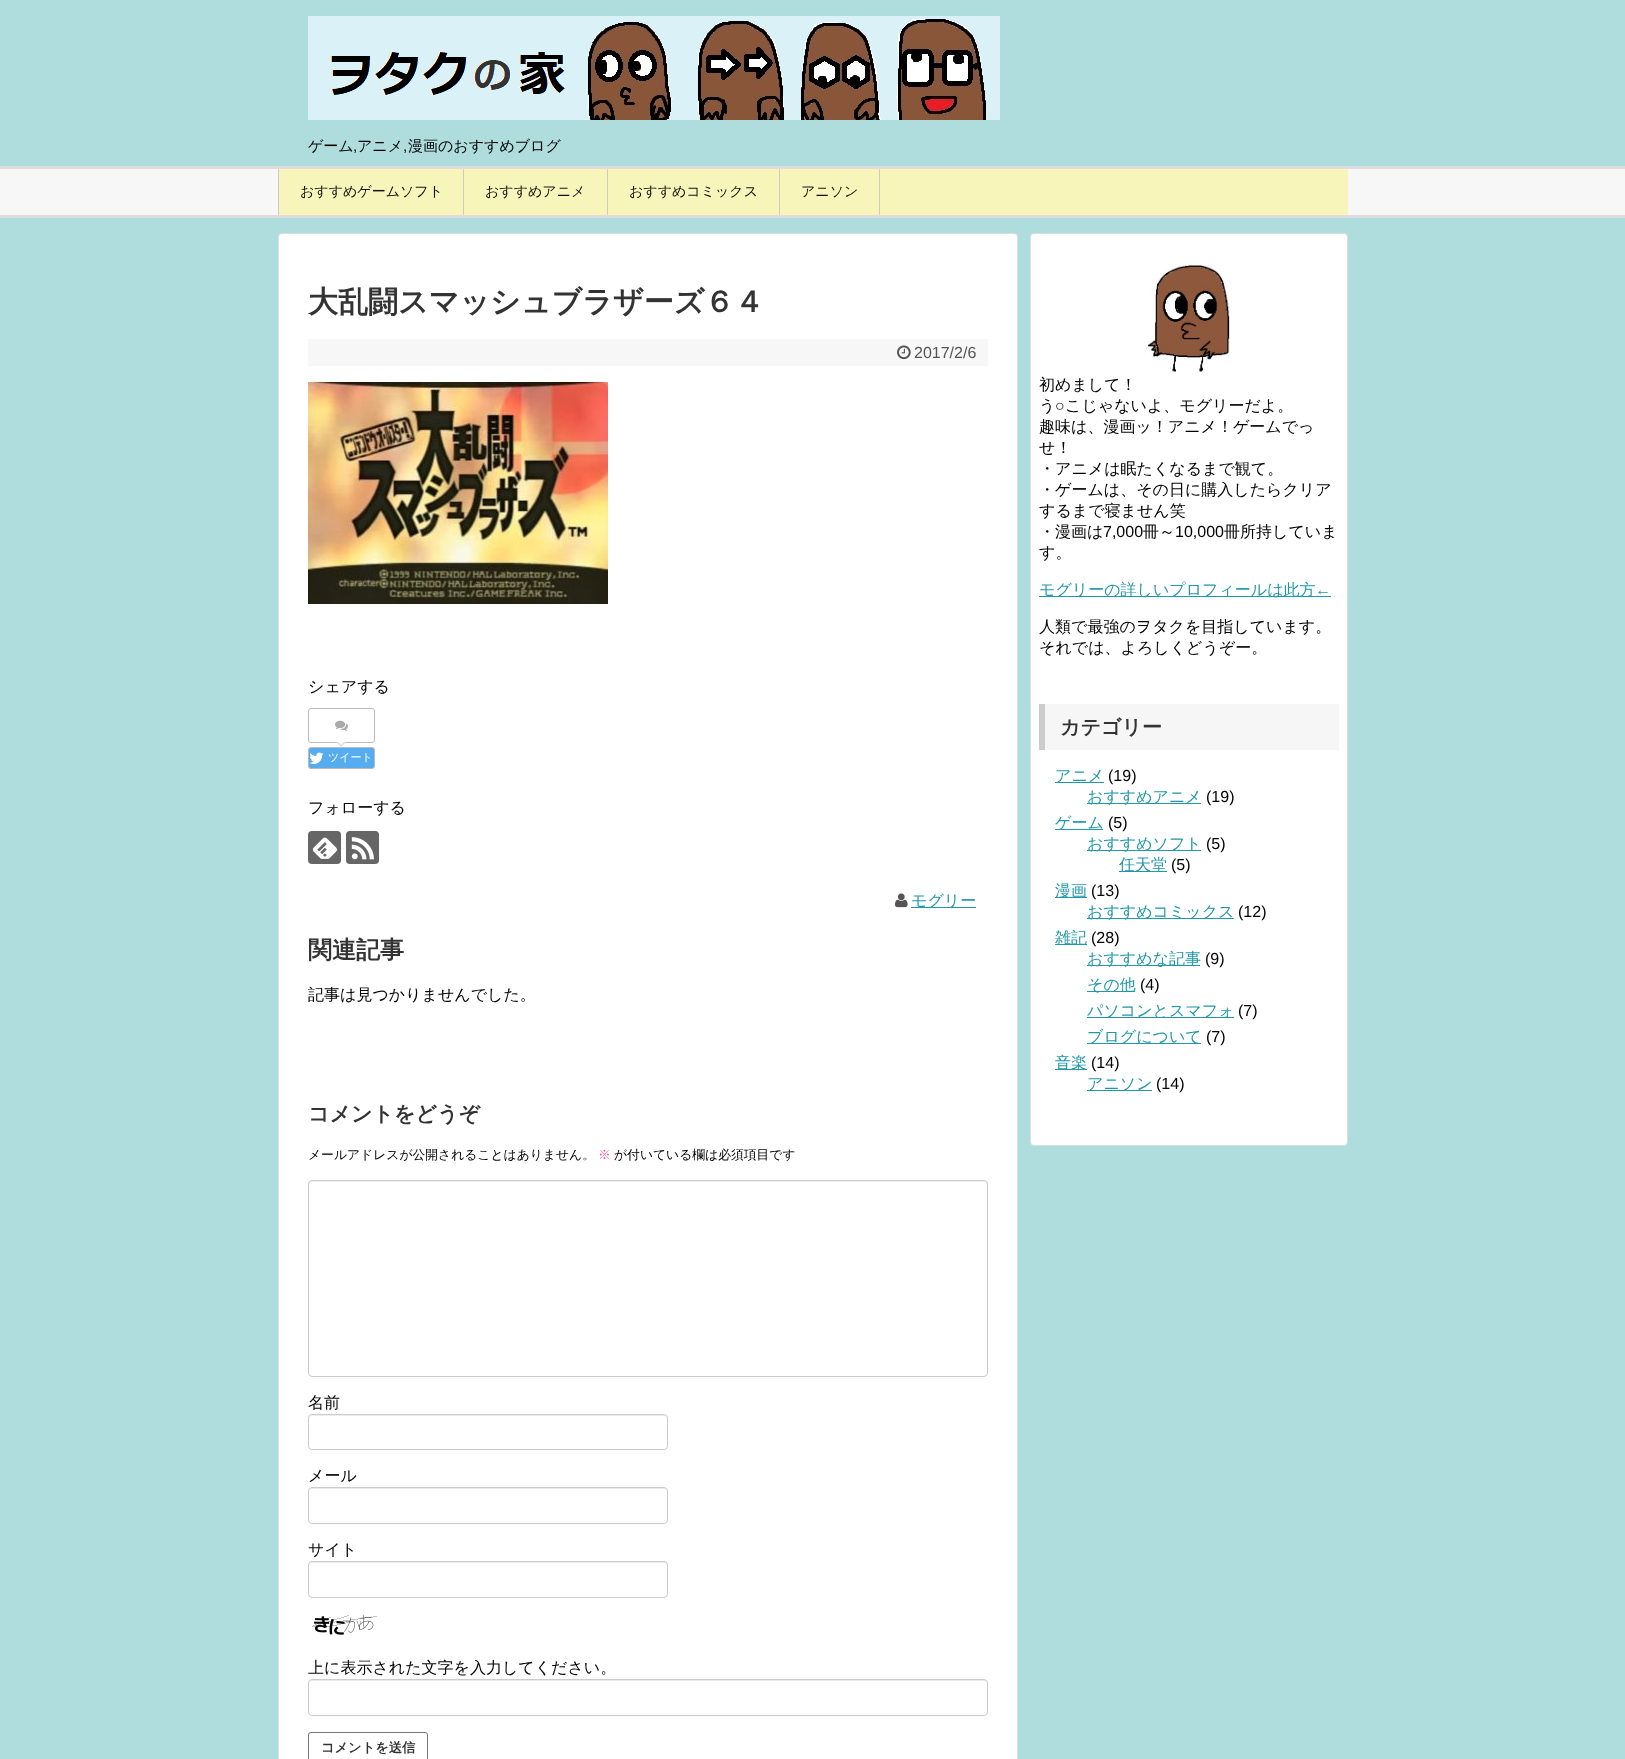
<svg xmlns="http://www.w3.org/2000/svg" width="1625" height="1759">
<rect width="100%" height="100%" fill="#afdddd"/>
<image x="308" y="16" width="692" height="104" href="media/1.png"/>
<text x="308" y="151" style="font-family:WenQuanYi Zen Hei;font-size:15px;font-weight:500;fill:#000">ゲーム</text>
<text x="353" y="151" style="font-family:Liberation Sans;font-size:15px;fill:#000">,</text>
<text x="357" y="151" style="font-family:WenQuanYi Zen Hei;font-size:15px;font-weight:500;fill:#000">アニメ</text>
<text x="403" y="151" style="font-family:Liberation Sans;font-size:15px;fill:#000">,</text>
<text x="408" y="151" style="font-family:WenQuanYi Zen Hei;font-size:15px;font-weight:500;fill:#000">漫画のおすすめブログ</text>
<rect y="169" width="1625" height="46" fill="#f7f7f7"/>
<rect y="166" width="1625" height="3" fill="#ddd"/>
<rect y="215" width="1625" height="3" fill="#ddd"/>
<rect x="279" y="169" width="1069" height="46" fill="#f7f5b9"/>
<rect x="278" y="169" width="1" height="46" fill="#ccc"/>
<rect x="463" y="169" width="1" height="46" fill="#ccc"/>
<text x="300" y="196" style="font-family:WenQuanYi Zen Hei;font-size:14px;font-weight:500;fill:#111">おすすめゲームソフト</text>
<rect x="607" y="169" width="1" height="46" fill="#ccc"/>
<text x="485" y="196" style="font-family:WenQuanYi Zen Hei;font-size:14px;font-weight:500;fill:#111">おすすめアニメ</text>
<rect x="779" y="169" width="1" height="46" fill="#ccc"/>
<text x="629" y="196" style="font-family:WenQuanYi Zen Hei;font-size:14px;font-weight:500;fill:#111">おすすめコミックス</text>
<rect x="879" y="169" width="1" height="46" fill="#ccc"/>
<text x="801" y="196" style="font-family:WenQuanYi Zen Hei;font-size:14px;font-weight:500;fill:#111">アニソン</text>
<rect x="278.5" y="233.5" width="739" height="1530" rx="3.5" fill="#fff" stroke="#ddd"/>
<text x="308" y="312" style="font-family:WenQuanYi Zen Hei;font-size:30px;font-weight:bold;fill:#333">大乱闘スマッシュブラザーズ６４</text>
<rect x="308" y="339" width="680" height="27" fill="#f7f7f7"/>
<image x="897" y="345" width="14" height="15" href="media/2.png"/>
<text x="914" y="358" style="font-family:Liberation Sans;font-size:16px;fill:#555">2017/2/6</text>
<image x="308" y="382" width="300" height="222" href="media/3.png"/>
<text x="308" y="692" style="font-family:WenQuanYi Zen Hei;font-size:16px;font-weight:500;fill:#000">シェアする</text>
<rect x="308.5" y="708.5" width="66" height="34" rx="2.5" fill="none" stroke="#bbb"/>
<image x="335" y="720" width="13" height="11" href="media/4.png"/>
<path d="M336 742h10l-5 5z" fill="#ddd"/>
<path d="M338 742h6l-3 3z" fill="#fff"/>
<rect x="308.5" y="747.5" width="66" height="21" rx="2.5" fill="#55acee" stroke="#bbb"/>
<image x="309" y="752" width="15" height="12" href="media/5.png"/>
<text x="328" y="761" style="font-family:WenQuanYi Zen Hei;font-size:11px;font-weight:500;fill:#fff">ツイート</text>
<text x="308" y="813" style="font-family:WenQuanYi Zen Hei;font-size:16px;font-weight:500;fill:#000">フォローする</text>
<rect x="308" y="831" width="33" height="33" rx="4" fill="#666"/>
<image x="312" y="837" width="25" height="22" href="media/6.png"/>
<rect x="346" y="831" width="33" height="33" rx="4" fill="#666"/>
<image x="351" y="837" width="23" height="23" href="media/7.png"/>
<image x="895" y="893" width="13" height="15" href="media/8.png"/>
<rect x="911" y="907" width="65" height="1" fill="#2098a8"/>
<text x="911" y="906" style="font-family:WenQuanYi Zen Hei;font-size:16px;font-weight:500;fill:#2098a8">モグリー</text>
<text x="308" y="958" style="font-family:WenQuanYi Zen Hei;font-size:24px;font-weight:bold;fill:#333">関連記事</text>
<text x="308" y="1000" style="font-family:WenQuanYi Zen Hei;font-size:16px;font-weight:500;fill:#000">記事は見つかりませんでした。</text>
<text x="308" y="1121" style="font-family:WenQuanYi Zen Hei;font-size:21px;font-weight:bold;fill:#333">コメントをどうぞ</text>
<text x="308" y="1159" style="font-family:WenQuanYi Zen Hei;font-size:12.8px;font-weight:500;fill:#000">メールアドレスが公開されることはありません。</text>
<text x="598" y="1159" style="font-family:WenQuanYi Zen Hei;font-size:12.8px;font-weight:500;fill:#fe56aa">※</text>
<text x="614" y="1159" style="font-family:WenQuanYi Zen Hei;font-size:12.8px;font-weight:500;fill:#000">が付いている欄は必須項目です</text>
<path d="M312 1182h672c2 0 3 1 3 3v-1c0-2-1-3-3-3h-672c-2 0-3 1-3 3v1c0-2 1-3 3-3z" fill="#ececec"/>
<rect x="308.5" y="1180.5" width="679" height="196" rx="3.5" fill="none" stroke="#ccc"/>
<text x="308" y="1408" style="font-family:WenQuanYi Zen Hei;font-size:16px;font-weight:500;fill:#000">名前</text>
<path d="M312 1416h352c2 0 3 1 3 3c0-2-1-4-3-4h-352l-2 1l-1 3c0-2 1-3 3-3z" fill="#ececec"/>
<rect x="308.5" y="1414.5" width="359" height="35" rx="3.5" fill="none" stroke="#ccc"/>
<text x="308" y="1481" style="font-family:WenQuanYi Zen Hei;font-size:16px;font-weight:500;fill:#000">メール</text>
<path d="M312 1489h352c2 0 3 1 3 3c0-2-1-4-3-4h-352l-2 1l-1 3c0-2 1-3 3-3z" fill="#ececec"/>
<rect x="308.5" y="1487.5" width="359" height="36" rx="3.5" fill="none" stroke="#ccc"/>
<text x="308" y="1555" style="font-family:WenQuanYi Zen Hei;font-size:16px;font-weight:500;fill:#000">サイト</text>
<path d="M312 1563h352c2 0 3 1 3 3c0-2-1-4-3-4h-352l-2 1l-1 3c0-2 1-3 3-3z" fill="#ececec"/>
<rect x="308.5" y="1561.5" width="359" height="36" rx="3.5" fill="none" stroke="#ccc"/>
<image x="312" y="1614" width="65" height="21" href="media/9.png"/>
<text x="308" y="1673" style="font-family:WenQuanYi Zen Hei;font-size:16px;font-weight:500;fill:#000">上に表示された文字を入力してください。</text>
<path d="M312 1681h672c2 0 3 1 3 3v-1c0-2-1-3-3-3h-672c-2 0-3 1-3 3v1c0-2 1-3 3-3z" fill="#ececec"/>
<rect x="308.5" y="1679.5" width="679" height="36" rx="3.5" fill="none" stroke="#ccc"/>
<rect x="308.5" y="1732.5" width="119" height="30" rx="2.5" fill="none" stroke="#777"/>
<text x="321" y="1752" style="font-family:WenQuanYi Zen Hei;font-size:13.25px;font-weight:bold;fill:#333">コメントを送信</text>
<rect x="1030.5" y="233.5" width="317" height="912" rx="3.5" fill="#fff" stroke="#ddd"/>
<image x="1145" y="264" width="85" height="108" href="media/10.png"/>
<text x="1039" y="390" style="font-family:WenQuanYi Zen Hei;font-size:16px;font-weight:500;fill:#000">初めまして！</text>
<text x="1039" y="411" style="font-family:WenQuanYi Zen Hei;font-size:16px;font-weight:500;fill:#000">う</text>
<text x="1055" y="411" style="font-family:Liberation Sans;font-size:16px;fill:#000">○</text>
<text x="1065" y="411" style="font-family:WenQuanYi Zen Hei;font-size:16px;font-weight:500;fill:#000">こじゃないよ、モグリーだよ。</text>
<text x="1039" y="432" style="font-family:WenQuanYi Zen Hei;font-size:16px;font-weight:500;fill:#000">趣味は、漫画ッ！アニメ！ゲームでっ</text>
<text x="1039" y="453" style="font-family:WenQuanYi Zen Hei;font-size:16px;font-weight:500;fill:#000">せ！</text>
<text x="1039" y="474" style="font-family:WenQuanYi Zen Hei;font-size:16px;font-weight:500;fill:#000">・アニメは眠たくなるまで観て。</text>
<text x="1039" y="495" style="font-family:WenQuanYi Zen Hei;font-size:16px;font-weight:500;fill:#000">・ゲームは、その日に購入したらクリア</text>
<text x="1039" y="516" style="font-family:WenQuanYi Zen Hei;font-size:16px;font-weight:500;fill:#000">するまで寝ません笑</text>
<text x="1039" y="537" style="font-family:WenQuanYi Zen Hei;font-size:16px;font-weight:500;fill:#000">・漫画は</text>
<text x="1103" y="537" style="font-family:Liberation Sans;font-size:16px;fill:#000">7,000</text>
<text x="1143" y="537" style="font-family:WenQuanYi Zen Hei;font-size:16px;font-weight:500;fill:#000">冊～</text>
<text x="1175" y="537" style="font-family:Liberation Sans;font-size:16px;fill:#000">10,000</text>
<text x="1224" y="537" style="font-family:WenQuanYi Zen Hei;font-size:16px;font-weight:500;fill:#000">冊所持していま</text>
<text x="1039" y="558" style="font-family:WenQuanYi Zen Hei;font-size:16px;font-weight:500;fill:#000">す。</text>
<rect x="1039" y="596" width="292" height="1" fill="#2098a8"/>
<text x="1039" y="595" style="font-family:WenQuanYi Zen Hei;font-size:16px;font-weight:500;fill:#2098a8">モグリーの詳しいプロフィールは此方</text>
<text x="1315" y="595" style="font-family:Liberation Sans;font-size:16px;fill:#2098a8">←</text>
<text x="1039" y="632" style="font-family:WenQuanYi Zen Hei;font-size:16px;font-weight:500;fill:#000">人類で最強のヲタクを目指しています。</text>
<text x="1039" y="653" style="font-family:WenQuanYi Zen Hei;font-size:16px;font-weight:500;fill:#000">それでは、よろしくどうぞー。</text>
<rect x="1045" y="704" width="294" height="46" fill="#f6f6f6"/>
<rect x="1039" y="704" width="6" height="46" fill="#ccc"/>
<text x="1060" y="734" style="font-family:WenQuanYi Zen Hei;font-size:20px;font-weight:bold;fill:#333">カテゴリー</text>
<rect x="1055" y="782" width="49" height="1" fill="#2098a8"/>
<text x="1055" y="781" style="font-family:WenQuanYi Zen Hei;font-size:16px;font-weight:500;fill:#2098a8">アニメ</text>
<text x="1108" y="781" style="font-family:Liberation Sans;font-size:16px;fill:#000">(19)</text>
<rect x="1087" y="803" width="114" height="1" fill="#2098a8"/>
<text x="1087" y="802" style="font-family:WenQuanYi Zen Hei;font-size:16px;font-weight:500;fill:#2098a8">おすすめアニメ</text>
<text x="1206" y="802" style="font-family:Liberation Sans;font-size:16px;fill:#000">(19)</text>
<rect x="1055" y="829" width="48" height="1" fill="#2098a8"/>
<text x="1055" y="828" style="font-family:WenQuanYi Zen Hei;font-size:16px;font-weight:500;fill:#2098a8">ゲーム</text>
<text x="1108" y="828" style="font-family:Liberation Sans;font-size:16px;fill:#000">(5)</text>
<rect x="1087" y="850" width="114" height="1" fill="#2098a8"/>
<text x="1087" y="849" style="font-family:WenQuanYi Zen Hei;font-size:16px;font-weight:500;fill:#2098a8">おすすめソフト</text>
<text x="1206" y="849" style="font-family:Liberation Sans;font-size:16px;fill:#000">(5)</text>
<rect x="1119" y="871" width="48" height="1" fill="#2098a8"/>
<text x="1119" y="870" style="font-family:WenQuanYi Zen Hei;font-size:16px;font-weight:500;fill:#2098a8">任天堂</text>
<text x="1171" y="870" style="font-family:Liberation Sans;font-size:16px;fill:#000">(5)</text>
<rect x="1055" y="897" width="32" height="1" fill="#2098a8"/>
<text x="1055" y="896" style="font-family:WenQuanYi Zen Hei;font-size:16px;font-weight:500;fill:#2098a8">漫画</text>
<text x="1091" y="896" style="font-family:Liberation Sans;font-size:16px;fill:#000">(13)</text>
<rect x="1087" y="918" width="147" height="1" fill="#2098a8"/>
<text x="1087" y="917" style="font-family:WenQuanYi Zen Hei;font-size:16px;font-weight:500;fill:#2098a8">おすすめコミックス</text>
<text x="1238" y="917" style="font-family:Liberation Sans;font-size:16px;fill:#000">(12)</text>
<rect x="1055" y="944" width="32" height="1" fill="#2098a8"/>
<text x="1055" y="943" style="font-family:WenQuanYi Zen Hei;font-size:16px;font-weight:500;fill:#2098a8">雑記</text>
<text x="1091" y="943" style="font-family:Liberation Sans;font-size:16px;fill:#000">(28)</text>
<rect x="1087" y="965" width="113" height="1" fill="#2098a8"/>
<text x="1087" y="964" style="font-family:WenQuanYi Zen Hei;font-size:16px;font-weight:500;fill:#2098a8">おすすめな記事</text>
<text x="1205" y="964" style="font-family:Liberation Sans;font-size:16px;fill:#000">(9)</text>
<rect x="1087" y="991" width="48" height="1" fill="#2098a8"/>
<text x="1087" y="990" style="font-family:WenQuanYi Zen Hei;font-size:16px;font-weight:500;fill:#2098a8">その他</text>
<text x="1140" y="990" style="font-family:Liberation Sans;font-size:16px;fill:#000">(4)</text>
<rect x="1087" y="1017" width="147" height="1" fill="#2098a8"/>
<text x="1087" y="1016" style="font-family:WenQuanYi Zen Hei;font-size:16px;font-weight:500;fill:#2098a8">パソコンとスマフォ</text>
<text x="1238" y="1016" style="font-family:Liberation Sans;font-size:16px;fill:#000">(7)</text>
<rect x="1087" y="1043" width="114" height="1" fill="#2098a8"/>
<text x="1087" y="1042" style="font-family:WenQuanYi Zen Hei;font-size:16px;font-weight:500;fill:#2098a8">ブログについて</text>
<text x="1206" y="1042" style="font-family:Liberation Sans;font-size:16px;fill:#000">(7)</text>
<rect x="1055" y="1069" width="32" height="1" fill="#2098a8"/>
<text x="1055" y="1068" style="font-family:WenQuanYi Zen Hei;font-size:16px;font-weight:500;fill:#2098a8">音楽</text>
<text x="1091" y="1068" style="font-family:Liberation Sans;font-size:16px;fill:#000">(14)</text>
<rect x="1087" y="1090" width="65" height="1" fill="#2098a8"/>
<text x="1087" y="1089" style="font-family:WenQuanYi Zen Hei;font-size:16px;font-weight:500;fill:#2098a8">アニソン</text>
<text x="1156" y="1089" style="font-family:Liberation Sans;font-size:16px;fill:#000">(14)</text>
</svg>
